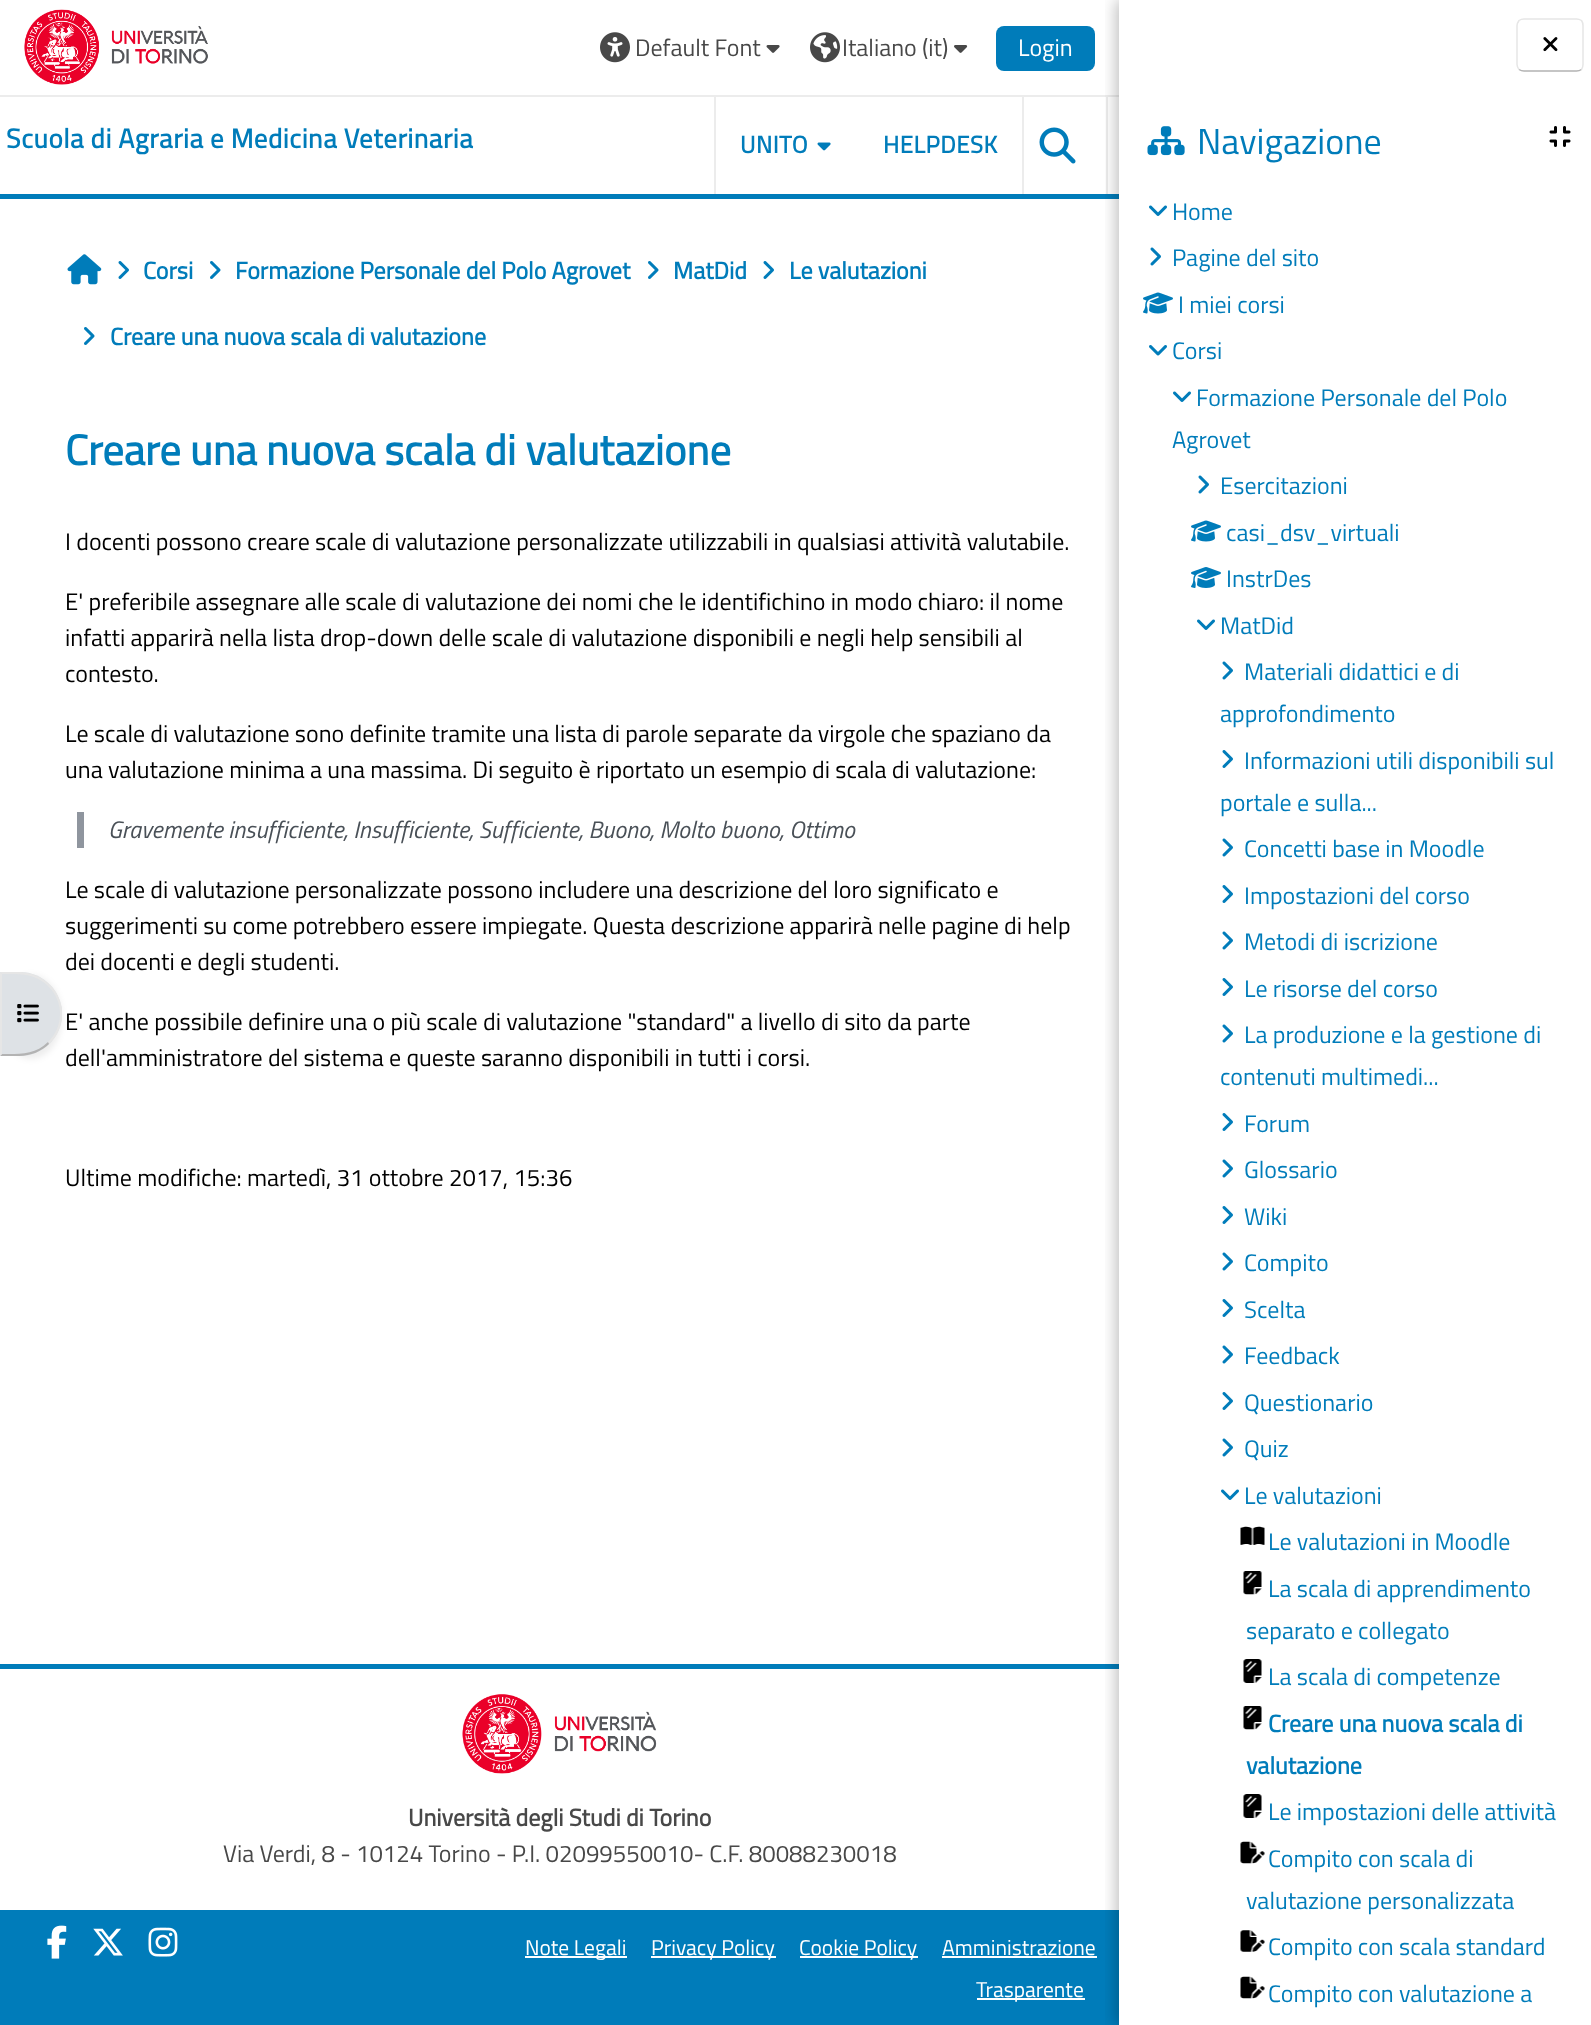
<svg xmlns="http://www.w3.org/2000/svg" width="1591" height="2025">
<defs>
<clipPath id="clip1"><rect x="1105" y="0" width="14" height="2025"/></clipPath>
</defs>
<rect width="100%" height="100%" fill="#fff"/>
<rect y="194" width="1119" height="5" fill="#007cba"/>
<rect y="95" width="1119" height="2" fill="#ececec"/>
<image x="24" y="9" width="184" height="76" href="media/1.png"/>
<image x="600" y="32" width="30" height="31" href="media/2.png"/>
<text x="635" y="56" style="font-family:Titillium Web;font-size:24px;fill:#484848">Default Font</text>
<image x="766" y="45" width="14" height="8" href="media/3.png"/>
<image x="810" y="32" width="30" height="31" href="media/4.png"/>
<text x="842" y="56" style="font-family:Titillium Web;font-size:24px;fill:#484848">Italiano (it)</text>
<image x="954" y="45" width="14" height="8" href="media/5.png"/>
<rect x="996" y="26" width="99" height="45" rx="8" fill="#007cba"/>
<text x="1018" y="56" style="font-family:Titillium Web;font-size:24px;fill:#fff">Login</text>
<text x="6" y="148" style="font-family:Titillium Web;font-size:27px;font-weight:bold;letter-spacing:0.55px;fill:#007cba">Scuola di Agraria e Medicina Veterinaria</text>
<rect x="1022" y="96" width="2" height="98" fill="#ececec"/>
<rect x="714" y="96" width="2" height="98" fill="#ececec"/>
<text x="740" y="153" style="font-family:Titillium Web;font-size:24px;font-weight:bold;letter-spacing:0.5px;fill:#007cba">UNITO</text>
<image x="817" y="142" width="14" height="9" href="media/6.png"/>
<text x="883" y="153" style="font-family:Titillium Web;font-size:24px;font-weight:bold;letter-spacing:0.5px;fill:#007cba">HELPDESK</text>
<rect x="1106" y="96" width="2" height="98" fill="#ececec"/>
<image x="1039" y="127" width="37" height="37" href="media/7.png"/>
<rect y="975" width="62" height="84" rx="42" fill="#00000012" filter="blur(3px)"/>
<path d="M0 972h20c23 0 42 19 42 42c0 23-19 42-42 42h-20z" fill="#dee2e6"/>
<path d="M0 972l2 2c17 0 33-1 46 12l1-2c-7-7-18-12-30-12z" fill="#e6e6e6"/>
<path d="M62 1020c-2 9-6 18-13 24l-1-2c16-15 16-41 0-56l1-2c7 6 11 15 13 24z" fill="#e6e6e6"/>
<path d="M19 1056c12 0 23-5 30-12l-1-2c-13 13-29 12-46 12l-2 2z" fill="#b3b3b3"/>
<path d="M2 974l-2-2v84l2-2z" fill="#e6e6e6"/>
<image x="17" y="1004" width="22" height="19" href="media/8.png"/>
<image x="67" y="254" width="35" height="31" href="media/9.png"/>
<image x="118" y="261" width="11" height="18" href="media/10.png"/>
<text x="143" y="279" style="font-family:Titillium Web;font-size:24px;font-weight:bold;fill:#007cba">Corsi</text>
<image x="210" y="261" width="11" height="18" href="media/11.png"/>
<text x="235" y="279" style="font-family:Titillium Web;font-size:24px;font-weight:bold;fill:#007cba">Formazione Personale del Polo Agrovet</text>
<image x="648" y="261" width="11" height="18" href="media/11.png"/>
<text x="673" y="279" style="font-family:Titillium Web;font-size:24px;font-weight:bold;fill:#007cba">MatDid</text>
<image x="763" y="261" width="11" height="18" href="media/10.png"/>
<text x="789" y="279" style="font-family:Titillium Web;font-size:24px;font-weight:bold;fill:#007cba">Le valutazioni</text>
<image x="84" y="327" width="11" height="18" href="media/11.png"/>
<text x="110" y="345" style="font-family:Titillium Web;font-size:24px;font-weight:bold;fill:#007cba">Creare una nuova scala di valutazione</text>
<text x="65" y="465" style="font-family:Titillium Web;font-size:42.5px;font-weight:bold;fill:#007cba">Creare una nuova scala di valutazione</text>
<text x="65" y="550" style="font-family:Titillium Web;font-size:24px;fill:#000">I docenti possono creare scale di valutazione personalizzate utilizzabili in qualsiasi attività valutabile.</text>
<text x="65" y="610" style="font-family:Titillium Web;font-size:24px;fill:#000">E' preferibile assegnare alle scale di valutazione dei nomi che le identifichino in modo chiaro: il nome</text>
<text x="65" y="646" style="font-family:Titillium Web;font-size:24px;fill:#000">infatti apparirà nella lista drop-down delle scale di valutazione disponibili e negli help sensibili al</text>
<text x="65" y="682" style="font-family:Titillium Web;font-size:24px;fill:#000">contesto.</text>
<text x="65" y="742" style="font-family:Titillium Web;font-size:24px;fill:#000">Le scale di valutazione sono definite tramite una lista di parole separate da virgole che spaziano da</text>
<text x="65" y="778" style="font-family:Titillium Web;font-size:24px;fill:#000">una valutazione minima a una massima. Di seguito è riportato un esempio di scala di valutazione:</text>
<rect x="77" y="812" width="7" height="36" fill="#8f959e"/>
<text x="108" y="838" style="font-family:Titillium Web;font-size:24px;font-style:italic;fill:#495057">Gravemente insufficiente, Insufficiente, Sufficiente, Buono, Molto buono, Ottimo</text>
<text x="65" y="898" style="font-family:Titillium Web;font-size:24px;fill:#000">Le scale di valutazione personalizzate possono includere una descrizione del loro significato e</text>
<text x="65" y="934" style="font-family:Titillium Web;font-size:24px;fill:#000">suggerimenti su come potrebbero essere impiegate. Questa descrizione apparirà nelle pagine di help</text>
<text x="65" y="970" style="font-family:Titillium Web;font-size:24px;fill:#000">dei docenti e degli studenti.</text>
<text x="65" y="1030" style="font-family:Titillium Web;font-size:24px;fill:#000">E' anche possibile definire una o più scale di valutazione "standard" a livello di sito da parte</text>
<text x="65" y="1066" style="font-family:Titillium Web;font-size:24px;fill:#000">dell'amministratore del sistema e queste saranno disponibili in tutti i corsi.</text>
<text x="65" y="1186" style="font-family:Titillium Web;font-size:24px;fill:#000">Ultime modifiche: martedì, 31 ottobre 2017, 15:36</text>
<rect y="1664" width="1119" height="5" fill="#007cba"/>
<image x="462" y="1694" width="195" height="80" href="media/12.png"/>
<text x="408" y="1826" style="font-family:Titillium Web;font-size:24px;font-weight:bold;fill:#484848">Università degli Studi di Torino</text>
<text x="223" y="1862" style="font-family:Titillium Web;font-size:24px;fill:#484848">Via Verdi, 8 - 10124 Torino - P.I. 02099550010- C.F. 80088230018</text>
<rect y="1910" width="1119" height="115" fill="#007cba"/>
<image x="47" y="1925" width="20" height="34" href="media/13.png"/>
<image x="93" y="1928" width="30" height="28" href="media/14.png"/>
<image x="148" y="1927" width="30" height="30" href="media/15.png"/>
<rect x="525" y="1956" width="102" height="2" fill="#fff"/>
<text x="525" y="1955" style="font-family:Titillium Web;font-size:21.5px;fill:#fff">Note Legali</text>
<rect x="651" y="1956" width="125" height="2" fill="#fff"/>
<text x="651" y="1955" style="font-family:Titillium Web;font-size:21.5px;fill:#fff">Privacy Policy</text>
<rect x="800" y="1956" width="118" height="2" fill="#fff"/>
<text x="799" y="1955" style="font-family:Titillium Web;font-size:21.5px;fill:#fff">Cookie Policy</text>
<text x="942" y="1955" style="font-family:Titillium Web;font-size:21.5px;fill:#fff">Amministrazione</text>
<rect x="942" y="1956" width="155" height="2" fill="#fff"/>
<rect x="977" y="1998" width="108" height="2" fill="#fff"/>
<text x="976" y="1997" style="font-family:Titillium Web;font-size:21.5px;fill:#fff">Trasparente</text>
<g clip-path="url(#clip1)">
<rect x="1116" width="473" height="2025" fill="#00000040" filter="blur(7.5px)"/>
</g>
<path d="M1581.5 69.5c-1.5 1-3 1.5-5 1.5h-52.5c-2 0-3.5-.5-5-1.5" fill="none" stroke="#b3b3b3" stroke-width="1.5"/>
<path d="M1519 69.5c-1-1.5-2-3-2-5v-39c0-2 1-3.5 2-5c1.5-1 3-1.5 5-1.5h52.5c2 0 3.5 .5 5 1.5c1 1.5 1.5 3 1.5 5v39c0 2-.5 3.5-1.5 5" fill="none" stroke="#e6e6e6" stroke-width="1.5"/>
<image x="1543" y="37" width="15" height="15" href="media/16.png"/>
<image x="1147" y="126" width="38" height="30" href="media/17.png"/>
<text x="1197" y="154" style="font-family:Titillium Web;font-size:36px;fill:#007cba">Navigazione</text>
<image x="1549" y="126" width="22" height="21" href="media/18.png"/>
<image x="1149" y="205" width="18" height="11" href="media/19.png"/>
<text x="1172" y="220" style="font-family:Titillium Web;font-size:24px;fill:#007cba">Home</text>
<image x="1150" y="247" width="11" height="19" href="media/20.png"/>
<text x="1172" y="266" style="font-family:Titillium Web;font-size:24px;fill:#007cba">Pagine del sito</text>
<image x="1143" y="292" width="30" height="22" href="media/21.png"/>
<text x="1178" y="313" style="font-family:Titillium Web;font-size:24px;fill:#007cba">I miei corsi</text>
<image x="1149" y="345" width="18" height="11" href="media/22.png"/>
<text x="1172" y="359" style="font-family:Titillium Web;font-size:24px;fill:#007cba">Corsi</text>
<image x="1173" y="391" width="18" height="11" href="media/19.png"/>
<text x="1196" y="406" style="font-family:Titillium Web;font-size:24px;fill:#007cba">Formazione Personale del Polo</text>
<text x="1172" y="448" style="font-family:Titillium Web;font-size:24px;fill:#007cba">Agrovet</text>
<image x="1198" y="475" width="11" height="19" href="media/20.png"/>
<text x="1220" y="494" style="font-family:Titillium Web;font-size:24px;fill:#007cba">Esercitazioni</text>
<image x="1191" y="520" width="30" height="22" href="media/21.png"/>
<text x="1226" y="541" style="font-family:Titillium Web;font-size:24px;fill:#007cba">casi_dsv_virtuali</text>
<image x="1191" y="567" width="30" height="21" href="media/23.png"/>
<text x="1226" y="587" style="font-family:Titillium Web;font-size:24px;fill:#007cba">InstrDes</text>
<image x="1197" y="619" width="18" height="11" href="media/19.png"/>
<text x="1220" y="634" style="font-family:Titillium Web;font-size:24px;fill:#007cba">MatDid</text>
<image x="1222" y="661" width="11" height="19" href="media/20.png"/>
<text x="1244" y="680" style="font-family:Titillium Web;font-size:24px;fill:#007cba">Materiali didattici e di</text>
<text x="1220" y="722" style="font-family:Titillium Web;font-size:24px;fill:#007cba">approfondimento</text>
<image x="1222" y="750" width="11" height="18" href="media/10.png"/>
<text x="1244" y="769" style="font-family:Titillium Web;font-size:24px;fill:#007cba">Informazioni utili disponibili sul</text>
<text x="1220" y="811" style="font-family:Titillium Web;font-size:24px;fill:#007cba">portale e sulla...</text>
<image x="1222" y="838" width="11" height="19" href="media/20.png"/>
<text x="1244" y="857" style="font-family:Titillium Web;font-size:24px;fill:#007cba">Concetti base in Moodle</text>
<image x="1222" y="885" width="11" height="18" href="media/10.png"/>
<text x="1244" y="904" style="font-family:Titillium Web;font-size:24px;fill:#007cba">Impostazioni del corso</text>
<image x="1222" y="931" width="11" height="19" href="media/20.png"/>
<text x="1244" y="950" style="font-family:Titillium Web;font-size:24px;fill:#007cba">Metodi di iscrizione</text>
<image x="1222" y="978" width="11" height="18" href="media/10.png"/>
<text x="1244" y="997" style="font-family:Titillium Web;font-size:24px;fill:#007cba">Le risorse del corso</text>
<image x="1222" y="1024" width="11" height="19" href="media/20.png"/>
<text x="1244" y="1043" style="font-family:Titillium Web;font-size:24px;fill:#007cba">La produzione e la gestione di</text>
<text x="1220" y="1085" style="font-family:Titillium Web;font-size:24px;fill:#007cba">contenuti multimedi...</text>
<image x="1222" y="1113" width="11" height="18" href="media/10.png"/>
<text x="1244" y="1132" style="font-family:Titillium Web;font-size:24px;fill:#007cba">Forum</text>
<image x="1222" y="1159" width="11" height="19" href="media/20.png"/>
<text x="1244" y="1178" style="font-family:Titillium Web;font-size:24px;fill:#007cba">Glossario</text>
<image x="1222" y="1206" width="11" height="18" href="media/10.png"/>
<text x="1244" y="1225" style="font-family:Titillium Web;font-size:24px;fill:#007cba">Wiki</text>
<image x="1222" y="1252" width="11" height="19" href="media/20.png"/>
<text x="1244" y="1271" style="font-family:Titillium Web;font-size:24px;fill:#007cba">Compito</text>
<image x="1222" y="1299" width="11" height="18" href="media/10.png"/>
<text x="1244" y="1318" style="font-family:Titillium Web;font-size:24px;fill:#007cba">Scelta</text>
<image x="1222" y="1345" width="11" height="19" href="media/20.png"/>
<text x="1244" y="1364" style="font-family:Titillium Web;font-size:24px;fill:#007cba">Feedback</text>
<image x="1222" y="1392" width="11" height="18" href="media/10.png"/>
<text x="1244" y="1411" style="font-family:Titillium Web;font-size:24px;fill:#007cba">Questionario</text>
<image x="1222" y="1438" width="11" height="19" href="media/20.png"/>
<text x="1244" y="1457" style="font-family:Titillium Web;font-size:24px;fill:#007cba">Quiz</text>
<image x="1221" y="1489" width="18" height="11" href="media/19.png"/>
<text x="1244" y="1504" style="font-family:Titillium Web;font-size:24px;fill:#007cba">Le valutazioni</text>
<image x="1240" y="1526" width="25" height="19" href="media/24.png"/>
<text x="1268" y="1550" style="font-family:Titillium Web;font-size:24px;fill:#007cba">Le valutazioni in Moodle</text>
<image x="1243" y="1571" width="19" height="24" href="media/25.png"/>
<text x="1268" y="1597" style="font-family:Titillium Web;font-size:24px;fill:#007cba">La scala di apprendimento</text>
<text x="1246" y="1639" style="font-family:Titillium Web;font-size:24px;fill:#007cba">separato e collegato</text>
<image x="1243" y="1659" width="19" height="24" href="media/26.png"/>
<text x="1268" y="1685" style="font-family:Titillium Web;font-size:24px;fill:#007cba">La scala di competenze</text>
<image x="1243" y="1706" width="19" height="24" href="media/25.png"/>
<text x="1268" y="1732" style="font-family:Titillium Web;font-size:24px;font-weight:bold;fill:#007cba">Creare una nuova scala di</text>
<text x="1246" y="1774" style="font-family:Titillium Web;font-size:24px;font-weight:bold;fill:#007cba">valutazione</text>
<image x="1243" y="1794" width="19" height="24" href="media/26.png"/>
<text x="1268" y="1820" style="font-family:Titillium Web;font-size:24px;fill:#007cba">Le impostazioni delle attività</text>
<image x="1240" y="1841" width="25" height="23" href="media/27.png"/>
<text x="1268" y="1867" style="font-family:Titillium Web;font-size:24px;fill:#007cba">Compito con scala di</text>
<text x="1246" y="1909" style="font-family:Titillium Web;font-size:24px;fill:#007cba">valutazione personalizzata</text>
<image x="1240" y="1930" width="25" height="22" href="media/28.png"/>
<text x="1268" y="1955" style="font-family:Titillium Web;font-size:24px;fill:#007cba">Compito con scala standard</text>
<image x="1240" y="1976" width="25" height="23" href="media/27.png"/>
<text x="1268" y="2002" style="font-family:Titillium Web;font-size:24px;fill:#007cba">Compito con valutazione a</text>
</svg>
